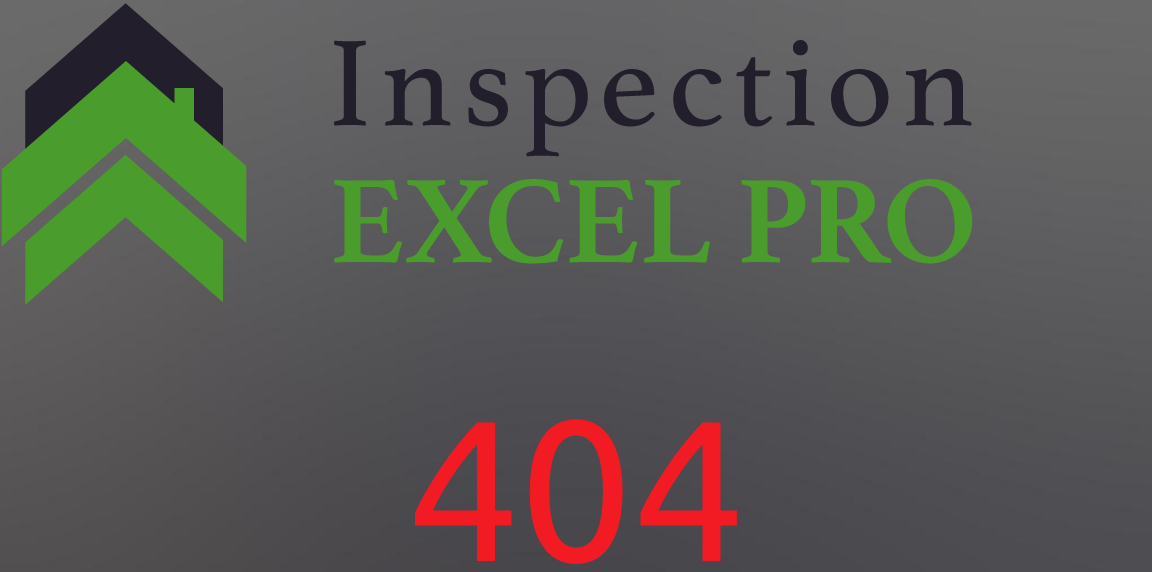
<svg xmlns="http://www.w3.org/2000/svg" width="1152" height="572">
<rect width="100%" height="100%" fill="#fff"/>
<image x="0" y="0" width="1152" height="572" href="media/1.png"/>
<image x="1" y="3" width="972" height="302" href="media/2.png"/>
<text x="407" y="561" style="font-family:Ubuntu;font-size:200px;fill:#f21b23">404</text>
</svg>
